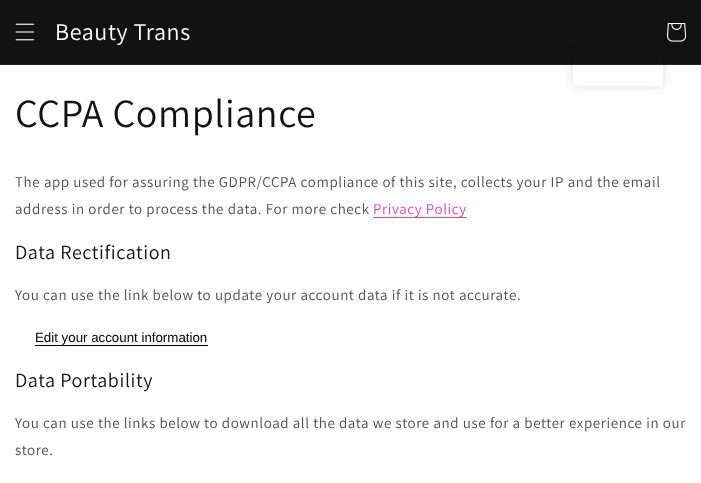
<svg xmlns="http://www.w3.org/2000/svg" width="701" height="483">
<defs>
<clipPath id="clip1"><path d="M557 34h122v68h-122zm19 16h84c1.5 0 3 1.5 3 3v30c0 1.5-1.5 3-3 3h-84c-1.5 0-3-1.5-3-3v-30c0-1.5 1.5-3 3-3z" clip-rule="evenodd"/></clipPath>
</defs>
<rect width="100%" height="100%" fill="#fff"/>
<rect width="701" height="64" fill="#121212"/>
<rect y="64" width="701" height="1" fill="#252525"/>
<image x="15" y="23" width="20" height="18" href="media/1.png"/>
<text x="55" y="40" style="font-family:Assistant;font-size:24px;letter-spacing:0.6px;fill:#fff">Beauty Trans</text>
<image x="667" y="23" width="20" height="19" href="media/2.png"/>
<g clip-path="url(#clip1)">
<rect x="573" y="50" width="90" height="36" rx="3" fill="#00000026" filter="blur(5px)"/>
</g>
<text x="15" y="127" style="font-family:Assistant;font-size:40px;letter-spacing:0.6px;fill:#121212">CCPA Compliance</text>
<text x="15" y="187" style="font-family:Assistant;font-size:15px;letter-spacing:0.6px;fill:#4d4d4d">The app used for assuring the GDPR/CCPA compliance of this site, collects your IP and the email</text>
<text x="15" y="214" style="font-family:Assistant;font-size:15px;letter-spacing:0.6px;fill:#4d4d4d">address in order to process the data. For more check</text>
<rect x="373" y="217" width="94" height="1" fill="#e24a99"/>
<text x="373" y="214" style="font-family:Assistant;font-size:15px;letter-spacing:0.6px;fill:#e24a99">Privacy Policy</text>
<text x="15" y="259" style="font-family:Assistant;font-size:20px;letter-spacing:0.6px;fill:#121212">Data Rectification</text>
<text x="15" y="300" style="font-family:Assistant;font-size:15px;letter-spacing:0.6px;fill:#4d4d4d">You can use the link below to update your account data if it is not accurate.</text>
<rect x="35" y="345" width="173" height="1" fill="#000"/>
<text x="35" y="342" style="font-family:Liberation Sans;font-size:13.3px;fill:#000">Edit your account information</text>
<text x="15" y="387" style="font-family:Assistant;font-size:20px;letter-spacing:0.6px;fill:#121212">Data Portability</text>
<text x="15" y="428" style="font-family:Assistant;font-size:15px;letter-spacing:0.6px;fill:#4d4d4d">You can use the links below to download all the data we store and use for a better experience in our</text>
<text x="15" y="455" style="font-family:Assistant;font-size:15px;letter-spacing:0.6px;fill:#4d4d4d">store.</text>
</svg>
